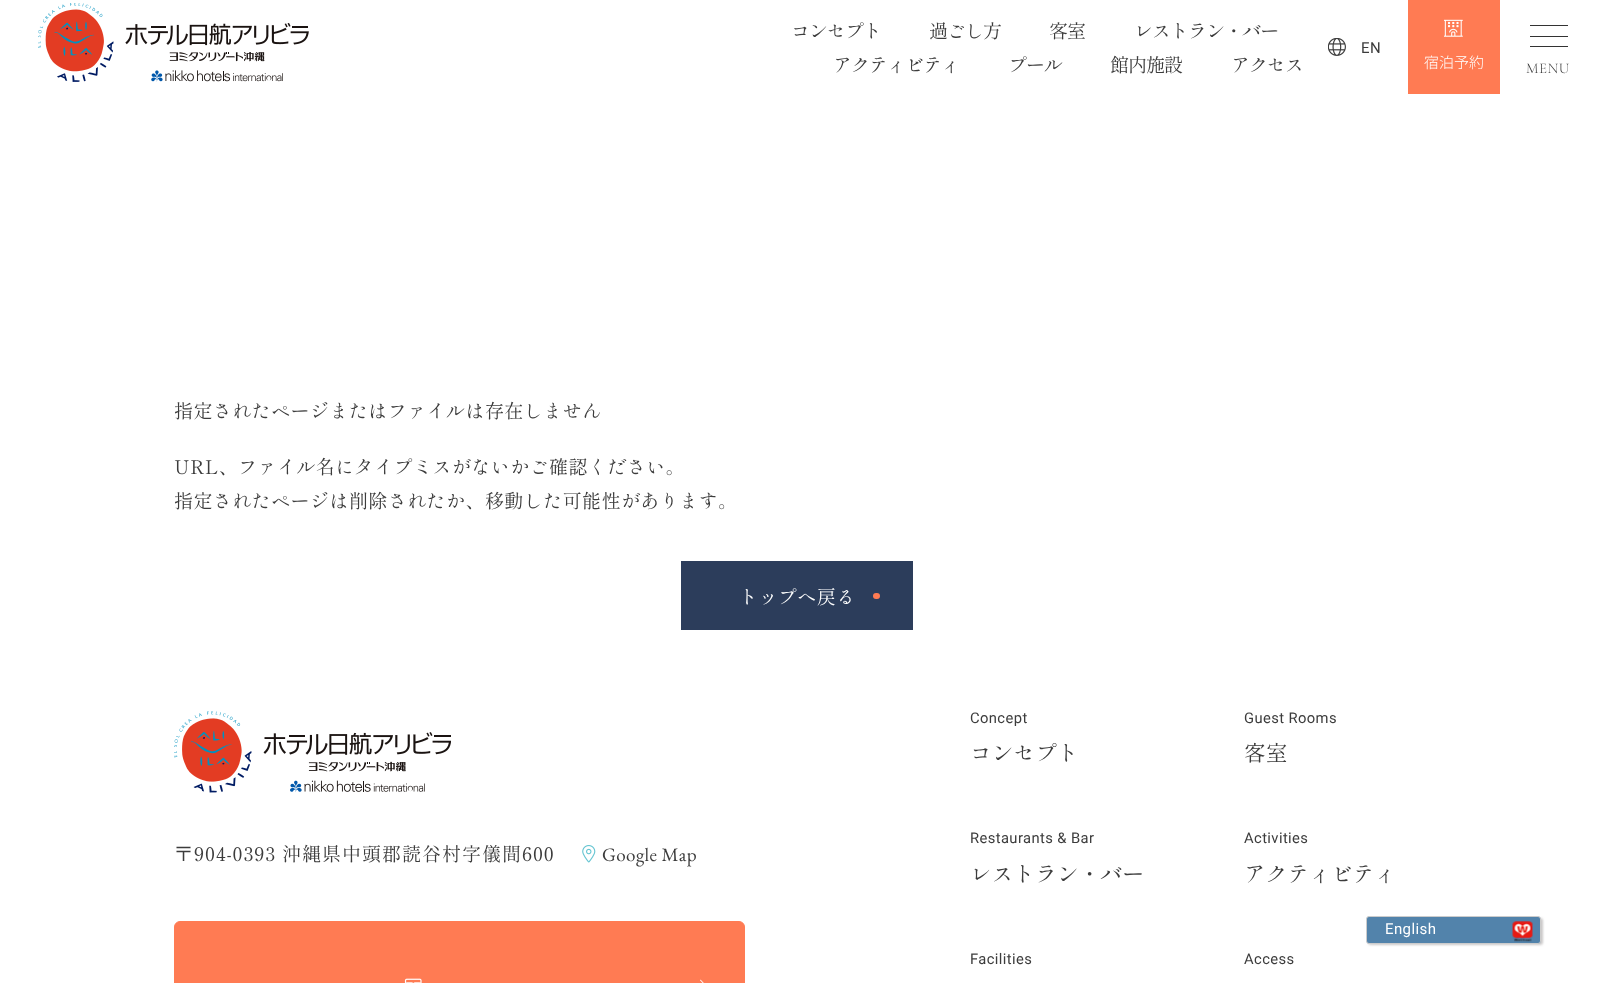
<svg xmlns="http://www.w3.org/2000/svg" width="1612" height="983">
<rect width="100%" height="100%" fill="#fff"/>
<image x="38" y="3" width="271" height="79" href="media/1.png"/>
<text x="791" y="38" style="font-family:Shippori Mincho;font-size:19.05px;letter-spacing:-1px;fill:#3c3c3c">コンセプト</text>
<text x="929" y="38" style="font-family:Shippori Mincho;font-size:19.05px;letter-spacing:-1px;fill:#3c3c3c">過ごし方</text>
<text x="1049" y="38" style="font-family:Shippori Mincho;font-size:19.05px;letter-spacing:-1px;fill:#3c3c3c">客室</text>
<text x="1134" y="38" style="font-family:Shippori Mincho;font-size:19.05px;letter-spacing:-1px;fill:#3c3c3c">レストラン・バー</text>
<text x="833" y="72" style="font-family:Shippori Mincho;font-size:19.05px;letter-spacing:-1px;fill:#3c3c3c">アクティビティ</text>
<text x="1008" y="72" style="font-family:Shippori Mincho;font-size:19.05px;letter-spacing:-1px;fill:#3c3c3c">プール</text>
<text x="1110" y="72" style="font-family:Shippori Mincho;font-size:19.05px;letter-spacing:-1px;fill:#3c3c3c">館内施設</text>
<text x="1231" y="72" style="font-family:Shippori Mincho;font-size:19.05px;letter-spacing:-1px;fill:#3c3c3c">アクセス</text>
<image x="1328" y="38" width="18" height="18" href="media/2.png"/>
<text x="1361" y="53" style="font-family:Roboto;font-size:15px;letter-spacing:0.4px;fill:#3c3c3c">EN</text>
<rect x="1408" width="92" height="94" fill="#ff7b53"/>
<image x="1444" y="19" width="19" height="18" href="media/3.png"/>
<text x="1424" y="68" style="font-family:Noto Sans JP;font-size:15px;font-weight:100;fill:#fff">宿泊予約</text>
<rect x="1530" y="25" width="38" height="1" fill="#333"/>
<rect x="1530" y="36" width="38" height="1" fill="#333"/>
<rect x="1530" y="46" width="38" height="1" fill="#333"/>
<text x="1526" y="73" style="font-family:Cormorant Garamond;font-size:15px;font-weight:300;letter-spacing:0.5px;fill:#3c3c3c">MENU</text>
<text x="174" y="418" style="font-family:Shippori Mincho;font-size:19.05px;letter-spacing:0.4px;fill:#3c3c3c">指定されたページまたはファイルは存在しません</text>
<text x="174" y="474" style="font-family:Shippori Mincho;font-size:19.05px;letter-spacing:0.4px;fill:#3c3c3c">URL、ファイル名にタイプミスがないかご確認ください。</text>
<text x="174" y="508" style="font-family:Shippori Mincho;font-size:19.05px;letter-spacing:0.4px;fill:#3c3c3c">指定されたページは削除されたか、移動した可能性があります。</text>
<rect x="681" y="561" width="232" height="69" fill="#2c3d5b"/>
<text x="739" y="604" style="font-family:Shippori Mincho;font-size:19.05px;letter-spacing:0.4px;fill:#fff">トップへ戻る</text>
<rect x="873" y="593" width="7" height="6" rx="3" fill="#ff7b53"/>
<image x="174" y="711" width="277" height="82" href="media/4.png"/>
<text x="174" y="861" style="font-family:Shippori Mincho;font-size:19.05px;letter-spacing:0.95px;fill:#3c3c3c">〒904-0393 沖縄県中頭郡読谷村字儀間600</text>
<image x="582" y="845" width="14" height="18" href="media/5.png"/>
<text x="602" y="861" style="font-family:EB Garamond;font-size:19.05px;letter-spacing:0.4px;fill:#3c3c3c">Google Map</text>
<rect x="174.5" y="921.5" width="570" height="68" rx="5.5" fill="#ff7b53" stroke="#ff7b53"/>
<image x="404" y="978" width="18" height="5" href="media/6.png"/>
<image x="700" y="979" width="4" height="4" href="media/7.png"/>
<text x="970" y="723" style="font-family:Roboto;font-size:14.75px;letter-spacing:0.4px;fill:#3c3c3c">Concept</text>
<text x="970" y="761" style="font-family:Shippori Mincho;font-size:21.75px;fill:#3c3c3c">コンセプト</text>
<text x="1244" y="723" style="font-family:Roboto;font-size:14.75px;letter-spacing:0.4px;fill:#3c3c3c">Guest Rooms</text>
<text x="1244" y="761" style="font-family:Shippori Mincho;font-size:21.75px;fill:#3c3c3c">客室</text>
<text x="970" y="843" style="font-family:Roboto;font-size:14.75px;letter-spacing:0.4px;fill:#3c3c3c">Restaurants &amp; Bar</text>
<text x="970" y="882" style="font-family:Shippori Mincho;font-size:21.75px;fill:#3c3c3c">レストラン・バー</text>
<text x="1244" y="843" style="font-family:Roboto;font-size:14.75px;letter-spacing:0.4px;fill:#3c3c3c">Activities</text>
<text x="1244" y="882" style="font-family:Shippori Mincho;font-size:21.75px;fill:#3c3c3c">アクティビティ</text>
<text x="970" y="964" style="font-family:Roboto;font-size:14.75px;letter-spacing:0.4px;fill:#3c3c3c">Facilities</text>
<text x="1244" y="964" style="font-family:Roboto;font-size:14.75px;letter-spacing:0.4px;fill:#3c3c3c">Access</text>
<rect x="1368" y="918" width="175" height="27" rx="3" fill="#cac8c8" filter="blur(1px)"/>
<rect x="1366.5" y="916.5" width="174" height="27" rx="2.5" fill="#5283ab" stroke="#ccc"/>
<text x="1385" y="934" style="font-family:Roboto;font-size:15px;letter-spacing:0.4px;fill:#fff">English</text>
<image x="1512" y="921" width="21" height="21" href="media/8.png"/>
</svg>
